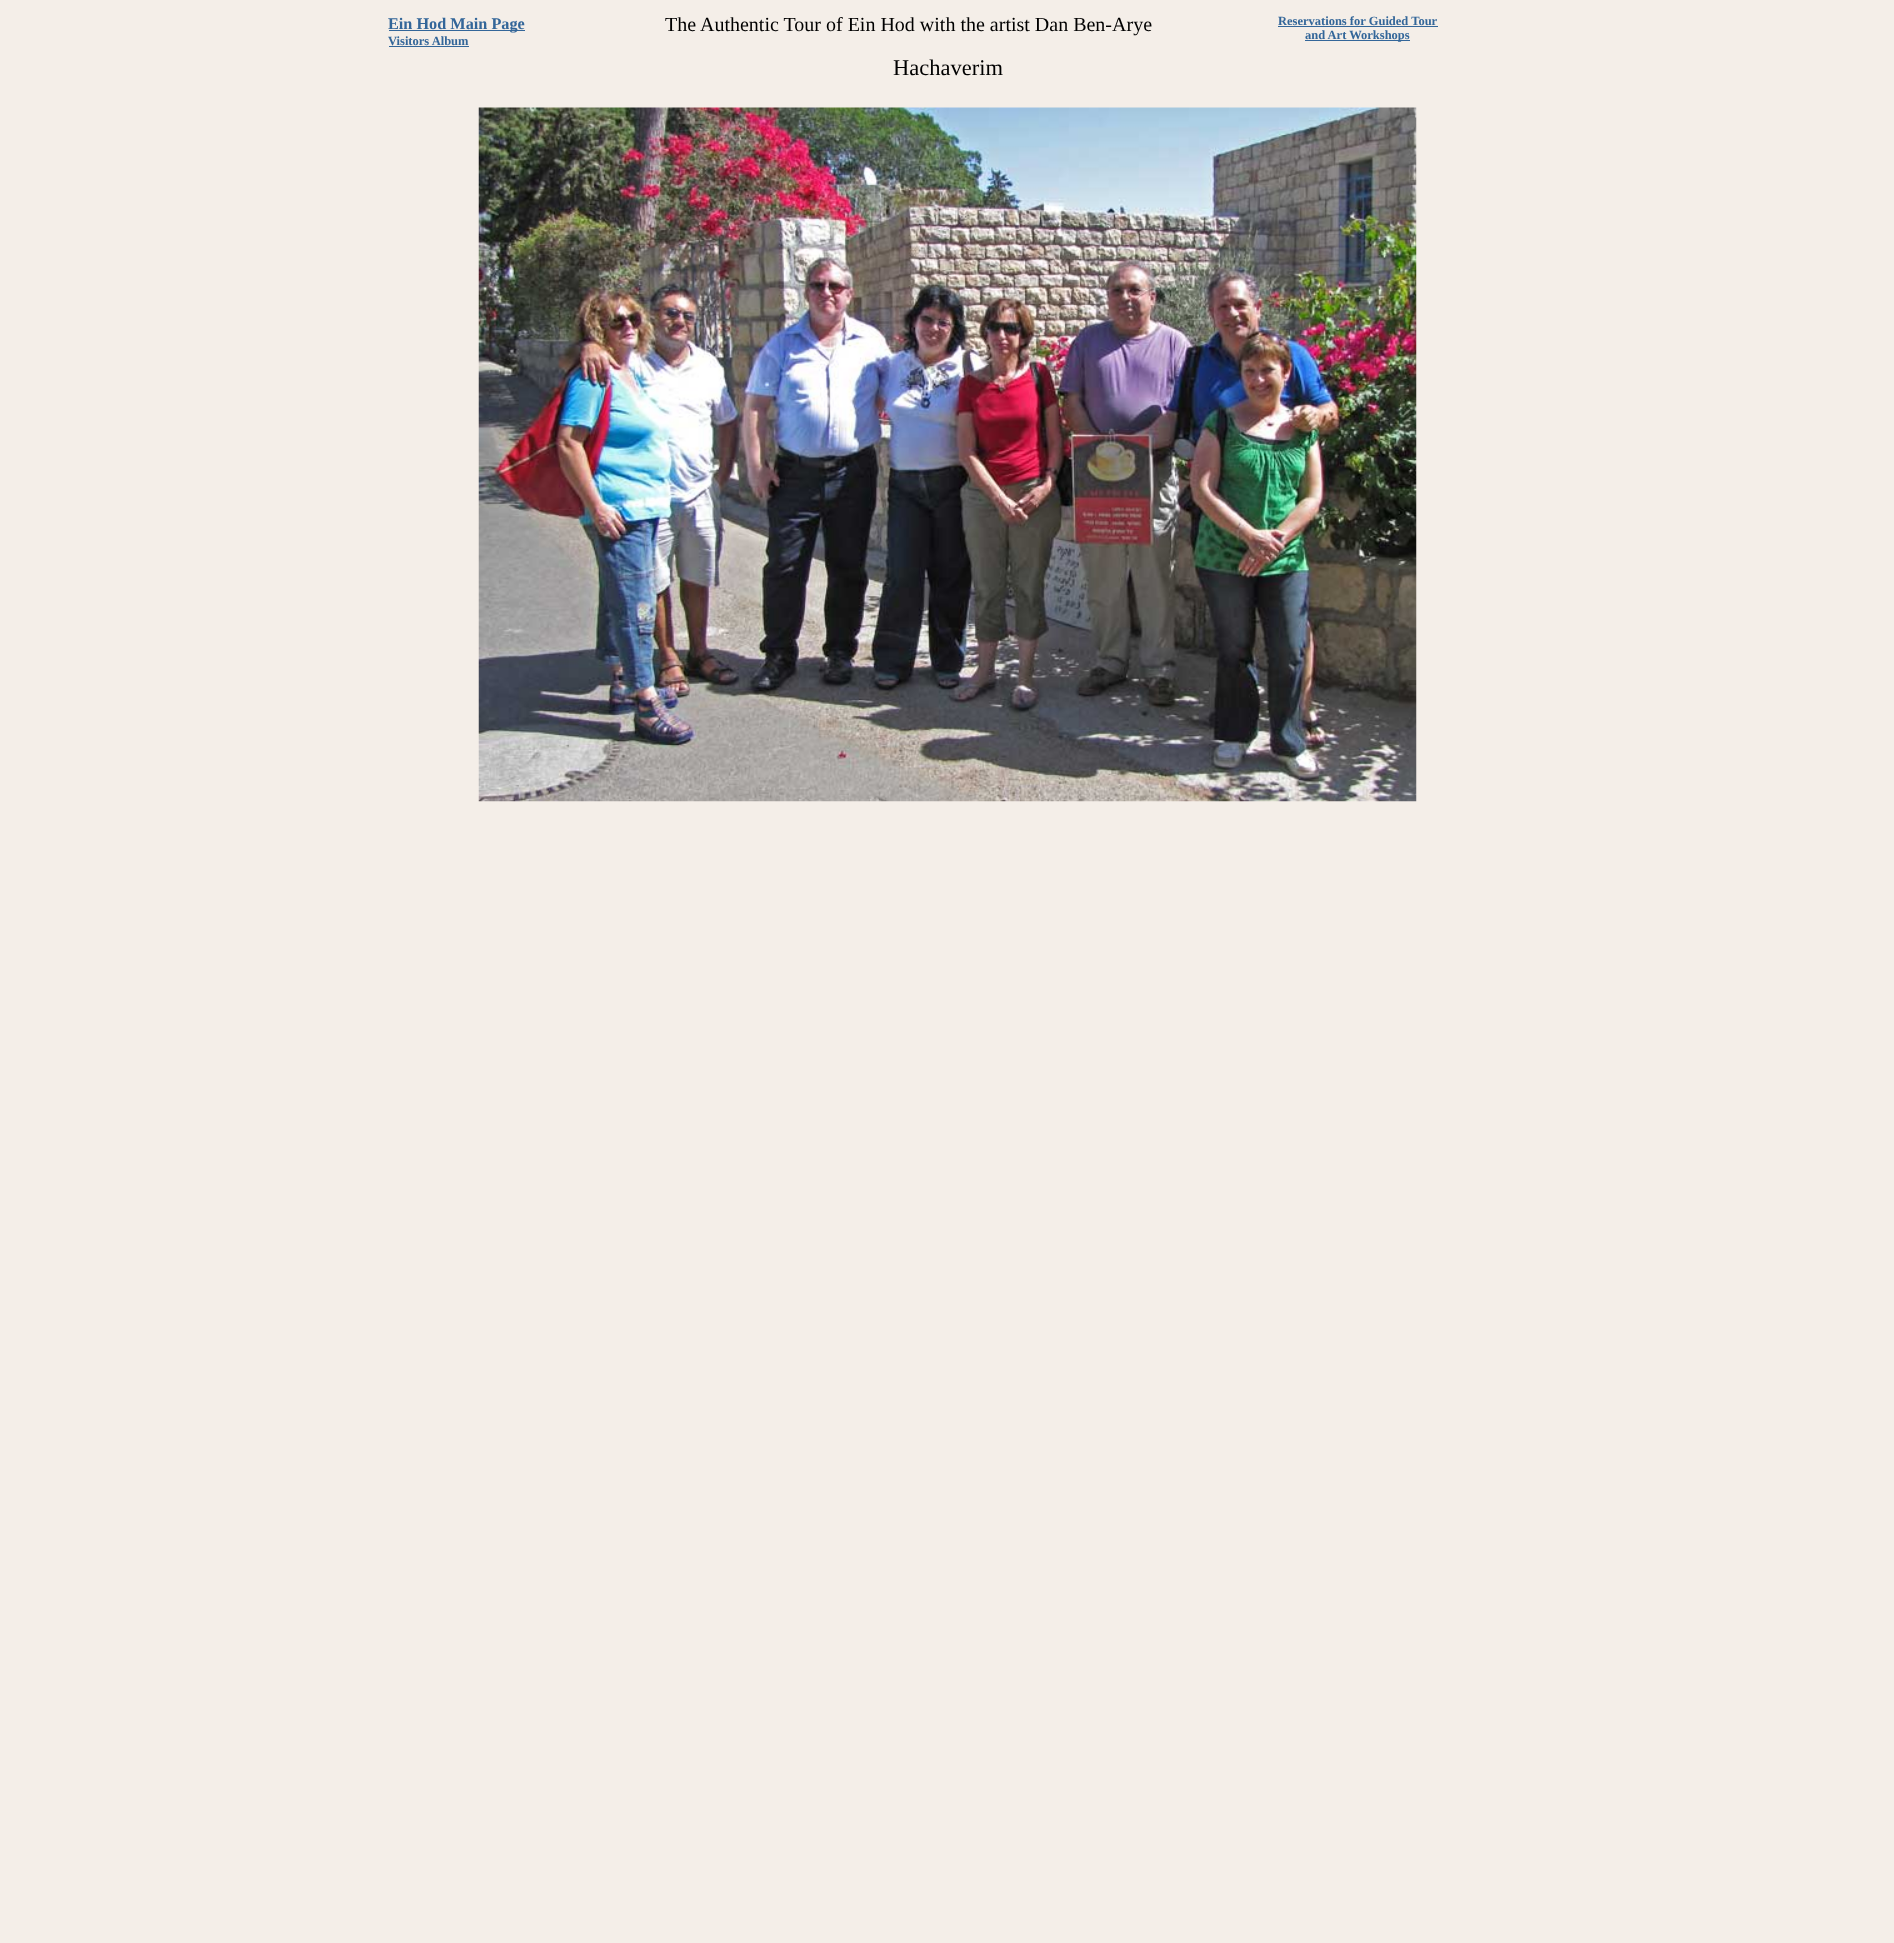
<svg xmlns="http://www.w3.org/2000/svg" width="1894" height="1943">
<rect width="100%" height="100%" fill="#f4eee8"/>
<rect x="389" y="30" width="136" height="1" fill="#369"/>
<text x="388" y="29" style="font-family:Liberation Serif;font-size:16.25px;font-weight:bold;fill:#369">Ein Hod Main Page</text>
<text x="388" y="45" style="font-family:Liberation Serif;font-size:12.5px;font-weight:bold;fill:#369">Visitors Album</text>
<rect x="389" y="46" width="80" height="1" fill="#369"/>
<text x="665" y="31" style="font-family:Liberation Serif;font-size:20px;fill:#000">The Authentic Tour of Ein Hod with the artist Dan Ben-Arye</text>
<text x="1278" y="25" style="font-family:Liberation Serif;font-size:12.5px;font-weight:bold;fill:#369">Reservations for Guided Tour</text>
<rect x="1278" y="26" width="160" height="1" fill="#369"/>
<rect x="1305" y="40" width="105" height="1" fill="#369"/>
<text x="1305" y="39" style="font-family:Liberation Serif;font-size:12.5px;font-weight:bold;fill:#369">and Art Workshops</text>
<text x="893" y="75" style="font-family:Liberation Serif;font-size:22.5px;fill:#000">Hachaverim</text>
<image x="478" y="107" width="939" height="695" href="media/1.png"/>
</svg>
